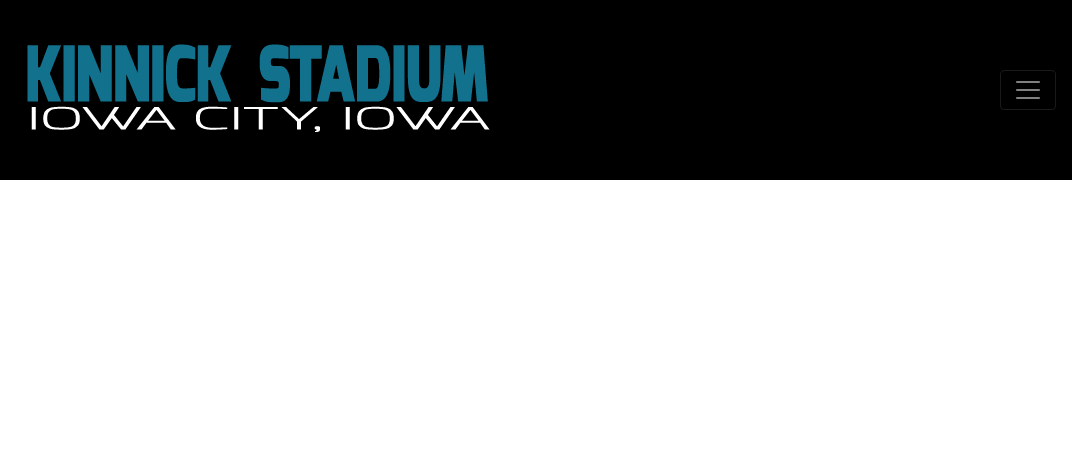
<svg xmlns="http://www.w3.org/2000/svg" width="1072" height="457">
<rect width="100%" height="100%" fill="#fff"/>
<rect width="1072" height="180" fill="#000"/>
<image x="27" y="44" width="463" height="88" href="media/1.png"/>
<rect x="1000.5" y="70.5" width="55" height="39" rx="3.5" fill="none" stroke="#1a1a1a"/>
<image x="1016" y="81" width="24" height="18" href="media/2.png"/>
</svg>
